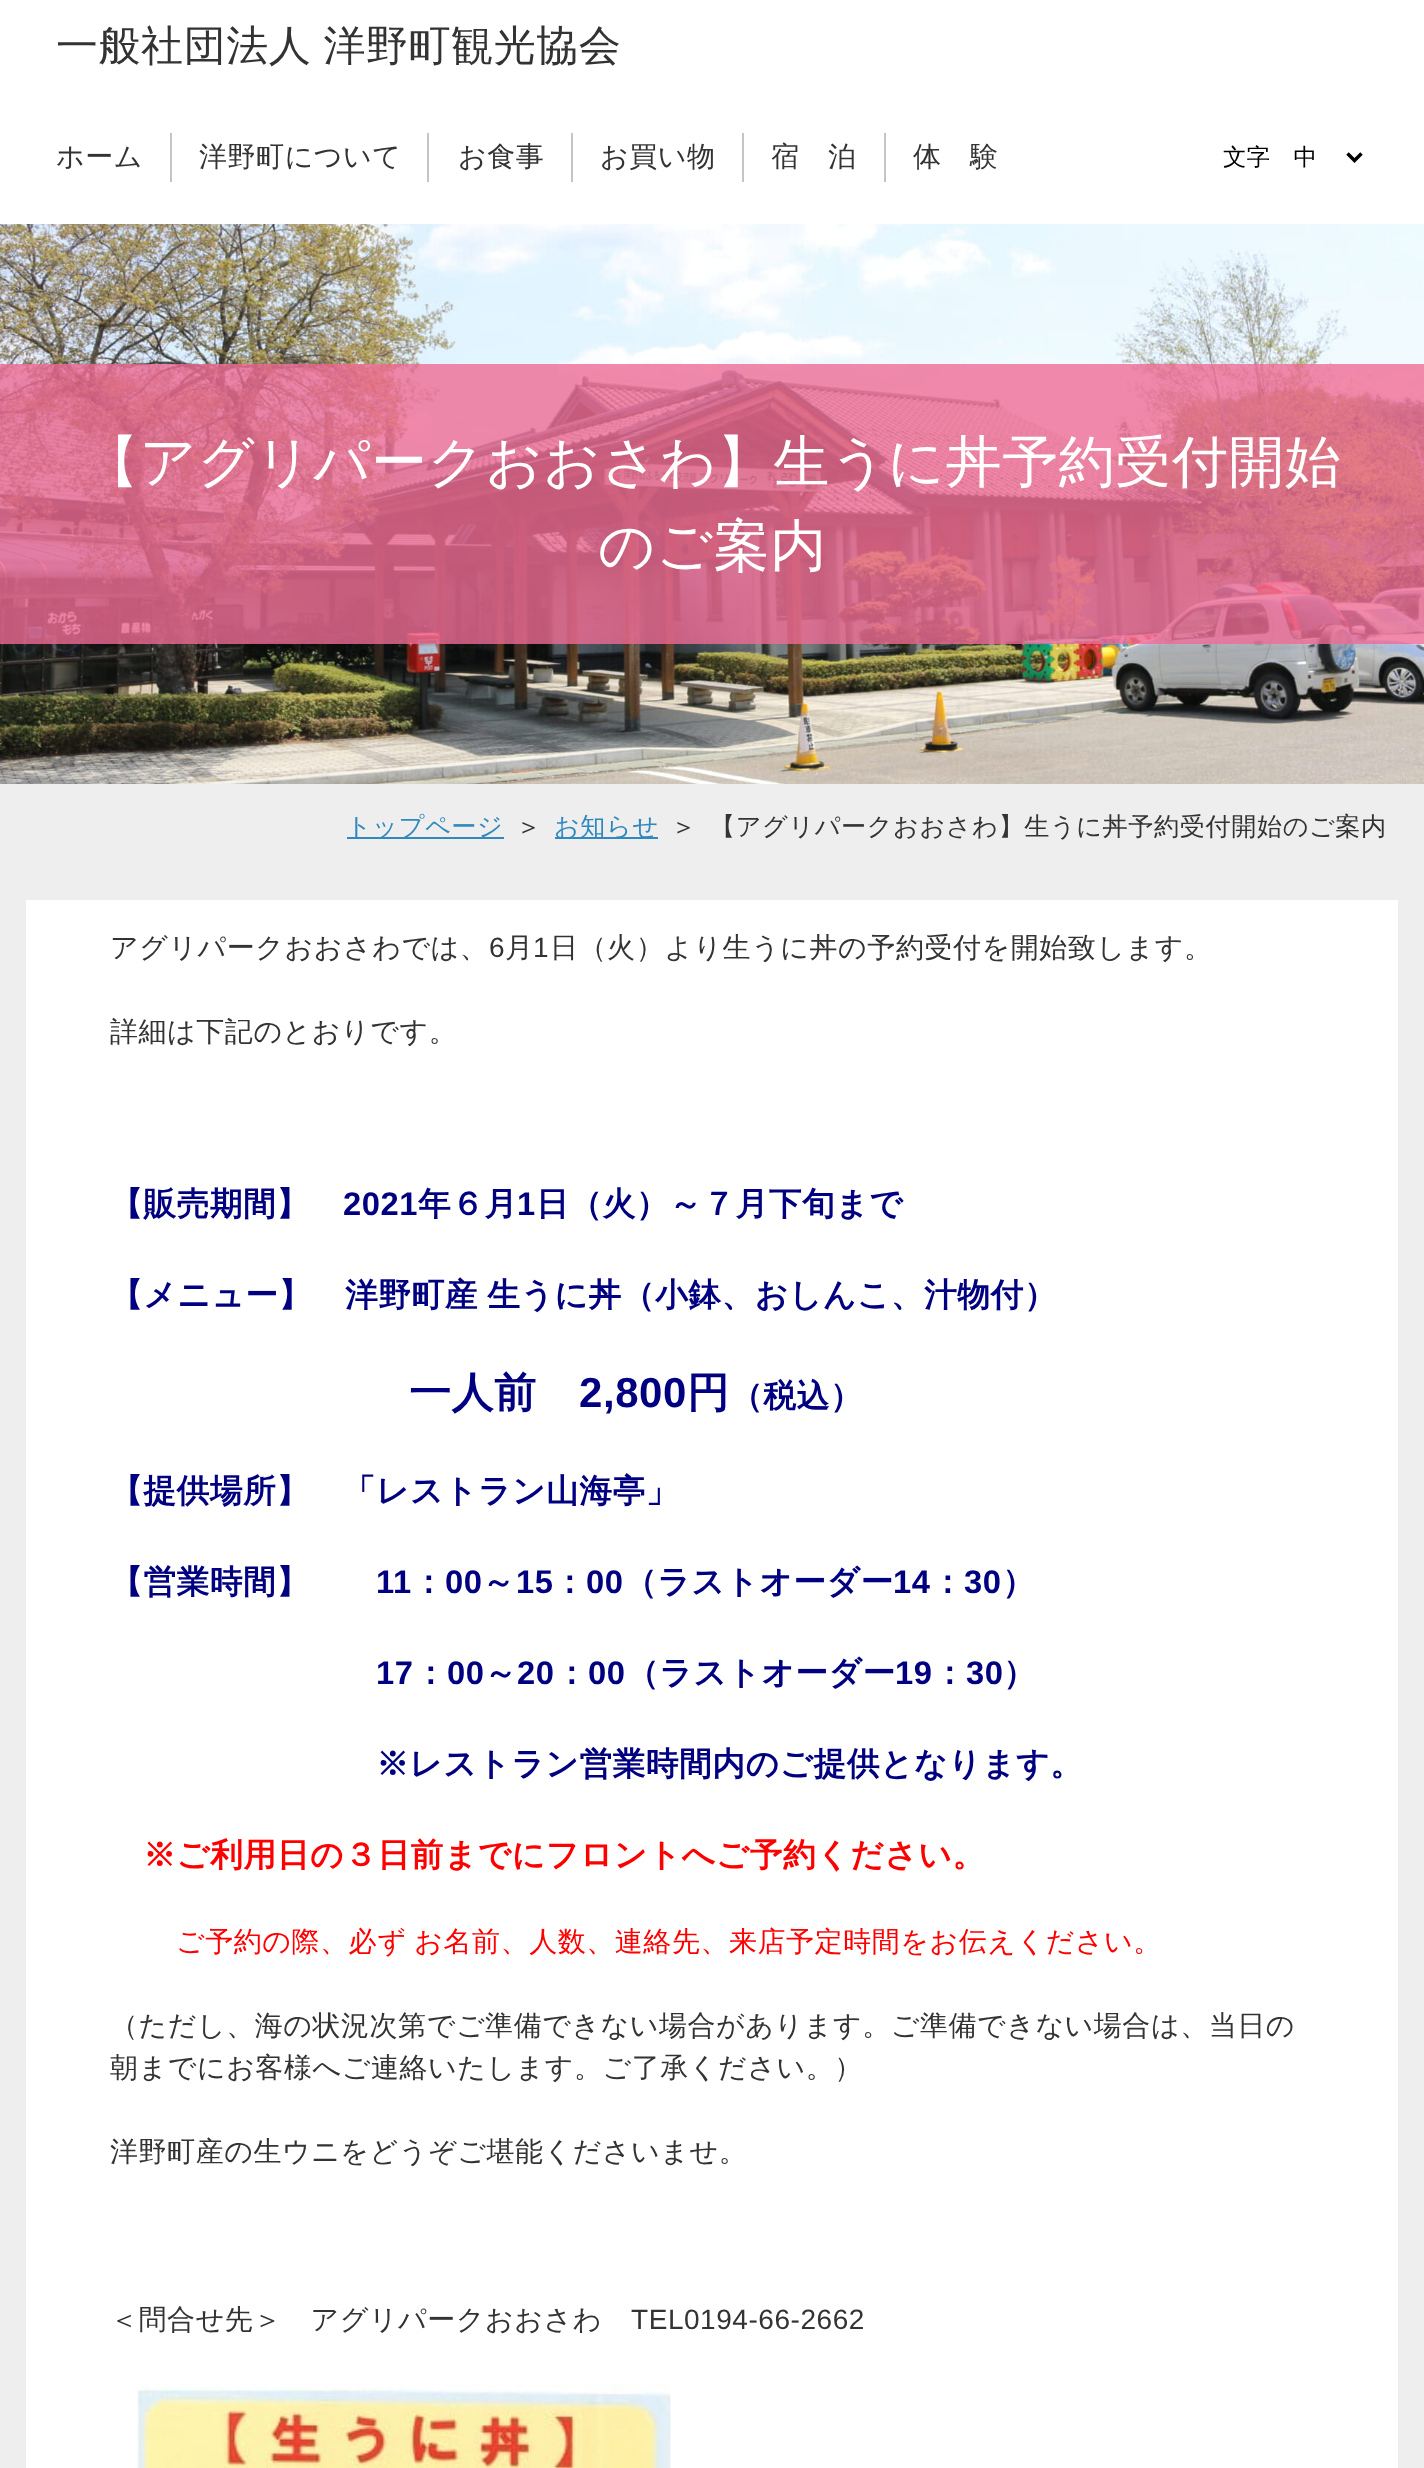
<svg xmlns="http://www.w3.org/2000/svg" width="1424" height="2468">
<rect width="100%" height="100%" fill="#eee"/>
<rect width="1424" height="224" fill="#fff"/>
<text x="56" y="60" word-spacing="-1" style="font-family:WenQuanYi Zen Hei;font-size:42px;font-weight:500;letter-spacing:0.55px;fill:#333">一般社団法人 洋野町観光協会</text>
<text x="56" y="166" style="font-family:WenQuanYi Zen Hei;font-size:28px;font-weight:500;letter-spacing:0.55px;fill:#333">ホーム</text>
<rect x="170" y="133" width="2" height="49" fill="#c5c5c5"/>
<text x="199" y="166" style="font-family:WenQuanYi Zen Hei;font-size:28px;font-weight:500;letter-spacing:0.55px;fill:#333">洋野町について</text>
<rect x="427" y="133" width="2" height="49" fill="#c5c5c5"/>
<text x="458" y="166" style="font-family:WenQuanYi Zen Hei;font-size:28px;font-weight:500;letter-spacing:0.55px;fill:#333">お食事</text>
<rect x="571" y="133" width="2" height="49" fill="#c5c5c5"/>
<text x="600" y="166" style="font-family:WenQuanYi Zen Hei;font-size:28px;font-weight:500;letter-spacing:0.55px;fill:#333">お買い物</text>
<rect x="742" y="133" width="2" height="49" fill="#c5c5c5"/>
<text x="771" y="166" style="font-family:WenQuanYi Zen Hei;font-size:28px;font-weight:500;letter-spacing:0.55px;fill:#333">宿　泊</text>
<rect x="884" y="133" width="2" height="49" fill="#c5c5c5"/>
<text x="913" y="166" style="font-family:WenQuanYi Zen Hei;font-size:28px;font-weight:500;letter-spacing:0.55px;fill:#333">体　験</text>
<path d="M1347.5 153.5l7 7l7-7" fill="none" stroke="#000" stroke-width="3.5"/>
<text x="1223" y="165" style="font-family:WenQuanYi Zen Hei;font-size:23.5px;font-weight:500;fill:#000">文字　中</text>
<image x="0" y="224" width="1424" height="560" href="media/1.png"/>
<rect y="364" width="1424" height="280" fill="#ef6c95cc"/>
<text x="83" y="481" style="font-family:WenQuanYi Zen Hei;font-size:56px;font-weight:500;letter-spacing:0.55px;fill:#fff">【アグリパークおおさわ】生うに丼予約受付開始</text>
<text x="598" y="565" style="font-family:WenQuanYi Zen Hei;font-size:56px;font-weight:500;letter-spacing:0.55px;fill:#fff">のご案内</text>
<rect x="347" y="837" width="157" height="2" fill="#3188bd"/>
<text x="346" y="835" style="font-family:WenQuanYi Zen Hei;font-size:25.2px;font-weight:500;letter-spacing:0.55px;fill:#3188bd">トップページ</text>
<text x="516" y="835" style="font-family:WenQuanYi Zen Hei;font-size:25.2px;font-weight:500;letter-spacing:0.55px;fill:#333">＞</text>
<rect x="555" y="837" width="103" height="2" fill="#3188bd"/>
<text x="554" y="835" style="font-family:WenQuanYi Zen Hei;font-size:25.2px;font-weight:500;letter-spacing:0.55px;fill:#3188bd">お知らせ</text>
<text x="671" y="835" style="font-family:WenQuanYi Zen Hei;font-size:25.2px;font-weight:500;letter-spacing:0.55px;fill:#333">＞</text>
<text x="710" y="835" style="font-family:WenQuanYi Zen Hei;font-size:25.2px;font-weight:500;letter-spacing:0.55px;fill:#333">【アグリパークおおさわ】生うに丼予約受付開始のご案内</text>
<rect x="26" y="900" width="1372" height="1568" fill="#fff"/>
<text x="110" y="957" style="font-family:WenQuanYi Zen Hei;font-size:28px;font-weight:500;letter-spacing:0.55px;fill:#333">アグリパークおおさわでは、</text>
<text x="489" y="957" style="font-family:Liberation Sans;font-size:28px;letter-spacing:0.55px;fill:#333">6</text>
<text x="505" y="957" style="font-family:WenQuanYi Zen Hei;font-size:28px;font-weight:500;letter-spacing:0.55px;fill:#333">月</text>
<text x="533" y="957" style="font-family:Liberation Sans;font-size:28px;letter-spacing:0.55px;fill:#333">1</text>
<text x="550" y="957" style="font-family:WenQuanYi Zen Hei;font-size:28px;font-weight:500;letter-spacing:0.55px;fill:#333">日（火）より生うに丼の予約受付を開始致します。</text>
<text x="110" y="1041" style="font-family:WenQuanYi Zen Hei;font-size:28px;font-weight:500;letter-spacing:0.55px;fill:#333">詳細は下記のとおりです。</text>
<text x="110" y="1215" style="font-family:WenQuanYi Zen Hei;font-size:32.7px;font-weight:bold;letter-spacing:0.55px;fill:#000080">【販売期間】</text>
<text x="343" y="1215" style="font-family:Liberation Sans;font-size:32.7px;font-weight:bold;letter-spacing:0.55px;fill:#000080">2021</text>
<text x="418" y="1215" style="font-family:WenQuanYi Zen Hei;font-size:32.7px;font-weight:bold;letter-spacing:0.55px;fill:#000080">年６月</text>
<text x="517" y="1215" style="font-family:Liberation Sans;font-size:32.7px;font-weight:bold;letter-spacing:0.55px;fill:#000080">1</text>
<text x="536" y="1215" style="font-family:WenQuanYi Zen Hei;font-size:32.7px;font-weight:bold;letter-spacing:0.55px;fill:#000080">日（火）～７月下旬まで</text>
<text x="110" y="1306" word-spacing="-1" style="font-family:WenQuanYi Zen Hei;font-size:32.7px;font-weight:bold;letter-spacing:0.55px;fill:#000080">【メニュー】　洋野町産 生うに丼（小鉢、おしんこ、汁物付）</text>
<text x="409" y="1407" style="font-family:WenQuanYi Zen Hei;font-size:42px;font-weight:bold;letter-spacing:0.55px;fill:#000080">一人前</text>
<text x="579" y="1407" style="font-family:Liberation Sans;font-size:42px;font-weight:bold;letter-spacing:0.55px;fill:#000080">2,800</text>
<text x="687" y="1407" style="font-family:WenQuanYi Zen Hei;font-size:42px;font-weight:bold;letter-spacing:0.55px;fill:#000080">円</text>
<text x="730" y="1407" style="font-family:WenQuanYi Zen Hei;font-size:32.7px;font-weight:bold;letter-spacing:0.55px;fill:#000080">（税込）</text>
<text x="110" y="1502" style="font-family:WenQuanYi Zen Hei;font-size:32.7px;font-weight:bold;letter-spacing:0.55px;fill:#000080">【提供場所】　「レストラン山海亭」</text>
<text x="110" y="1593" style="font-family:WenQuanYi Zen Hei;font-size:32.7px;font-weight:bold;letter-spacing:0.55px;fill:#000080">【営業時間】</text>
<text x="376" y="1593" style="font-family:Liberation Sans;font-size:32.7px;font-weight:bold;letter-spacing:0.55px;fill:#000080">11</text>
<text x="412" y="1593" style="font-family:WenQuanYi Zen Hei;font-size:32.7px;font-weight:bold;letter-spacing:0.55px;fill:#000080">：</text>
<text x="445" y="1593" style="font-family:Liberation Sans;font-size:32.7px;font-weight:bold;letter-spacing:0.55px;fill:#000080">00</text>
<text x="482" y="1593" style="font-family:WenQuanYi Zen Hei;font-size:32.7px;font-weight:bold;letter-spacing:0.55px;fill:#000080">～</text>
<text x="516" y="1593" style="font-family:Liberation Sans;font-size:32.7px;font-weight:bold;letter-spacing:0.55px;fill:#000080">15</text>
<text x="553" y="1593" style="font-family:WenQuanYi Zen Hei;font-size:32.7px;font-weight:bold;letter-spacing:0.55px;fill:#000080">：</text>
<text x="586" y="1593" style="font-family:Liberation Sans;font-size:32.7px;font-weight:bold;letter-spacing:0.55px;fill:#000080">00</text>
<text x="624" y="1593" style="font-family:WenQuanYi Zen Hei;font-size:32.7px;font-weight:bold;letter-spacing:0.55px;fill:#000080">（ラストオーダー</text>
<text x="893" y="1593" style="font-family:Liberation Sans;font-size:32.7px;font-weight:bold;letter-spacing:0.55px;fill:#000080">14</text>
<text x="931" y="1593" style="font-family:WenQuanYi Zen Hei;font-size:32.7px;font-weight:bold;letter-spacing:0.55px;fill:#000080">：</text>
<text x="964" y="1593" style="font-family:Liberation Sans;font-size:32.7px;font-weight:bold;letter-spacing:0.55px;fill:#000080">30</text>
<text x="1002" y="1593" style="font-family:WenQuanYi Zen Hei;font-size:32.7px;font-weight:bold;letter-spacing:0.55px;fill:#000080">）</text>
<text x="376" y="1684" style="font-family:Liberation Sans;font-size:32.7px;font-weight:bold;letter-spacing:0.55px;fill:#000080">17</text>
<text x="414" y="1684" style="font-family:WenQuanYi Zen Hei;font-size:32.7px;font-weight:bold;letter-spacing:0.55px;fill:#000080">：</text>
<text x="447" y="1684" style="font-family:Liberation Sans;font-size:32.7px;font-weight:bold;letter-spacing:0.55px;fill:#000080">00</text>
<text x="484" y="1684" style="font-family:WenQuanYi Zen Hei;font-size:32.7px;font-weight:bold;letter-spacing:0.55px;fill:#000080">～</text>
<text x="517" y="1684" style="font-family:Liberation Sans;font-size:32.7px;font-weight:bold;letter-spacing:0.55px;fill:#000080">20</text>
<text x="555" y="1684" style="font-family:WenQuanYi Zen Hei;font-size:32.7px;font-weight:bold;letter-spacing:0.55px;fill:#000080">：</text>
<text x="588" y="1684" style="font-family:Liberation Sans;font-size:32.7px;font-weight:bold;letter-spacing:0.55px;fill:#000080">00</text>
<text x="626" y="1684" style="font-family:WenQuanYi Zen Hei;font-size:32.7px;font-weight:bold;letter-spacing:0.55px;fill:#000080">（ラストオーダー</text>
<text x="895" y="1684" style="font-family:Liberation Sans;font-size:32.7px;font-weight:bold;letter-spacing:0.55px;fill:#000080">19</text>
<text x="933" y="1684" style="font-family:WenQuanYi Zen Hei;font-size:32.7px;font-weight:bold;letter-spacing:0.55px;fill:#000080">：</text>
<text x="966" y="1684" style="font-family:Liberation Sans;font-size:32.7px;font-weight:bold;letter-spacing:0.55px;fill:#000080">30</text>
<text x="1003" y="1684" style="font-family:WenQuanYi Zen Hei;font-size:32.7px;font-weight:bold;letter-spacing:0.55px;fill:#000080">）</text>
<text x="376" y="1775" style="font-family:WenQuanYi Zen Hei;font-size:32.7px;font-weight:bold;letter-spacing:0.55px;fill:#000080">※レストラン営業時間内のご提供となります。</text>
<text x="143" y="1866" style="font-family:WenQuanYi Zen Hei;font-size:32.7px;font-weight:bold;letter-spacing:0.55px;fill:#f00">※ご利用日の３日前までにフロントへご予約ください。</text>
<text x="176" y="1951" word-spacing="-1" style="font-family:WenQuanYi Zen Hei;font-size:28px;font-weight:500;letter-spacing:0.55px;fill:#f00">ご予約の際、必ず お名前、人数、連絡先、来店予定時間をお伝えください。</text>
<text x="110" y="2035" style="font-family:WenQuanYi Zen Hei;font-size:28px;font-weight:500;letter-spacing:0.55px;fill:#333">（ただし、海の状況次第でご準備できない場合があります。ご準備できない場合は、当日の</text>
<text x="110" y="2077" style="font-family:WenQuanYi Zen Hei;font-size:28px;font-weight:500;letter-spacing:0.55px;fill:#333">朝までにお客様へご連絡いたします。ご了承ください。）</text>
<text x="110" y="2161" style="font-family:WenQuanYi Zen Hei;font-size:28px;font-weight:500;letter-spacing:0.55px;fill:#333">洋野町産の生ウニをどうぞご堪能くださいませ。</text>
<text x="110" y="2329" style="font-family:WenQuanYi Zen Hei;font-size:28px;font-weight:500;letter-spacing:0.55px;fill:#333">＜問合せ先＞　アグリパークおおさわ</text>
<text x="631" y="2329" style="font-family:Liberation Sans;font-size:28px;letter-spacing:0.55px;fill:#333">TEL0194-66-2662</text>
<image x="137" y="2383" width="534" height="85" href="media/2.png"/>
</svg>
